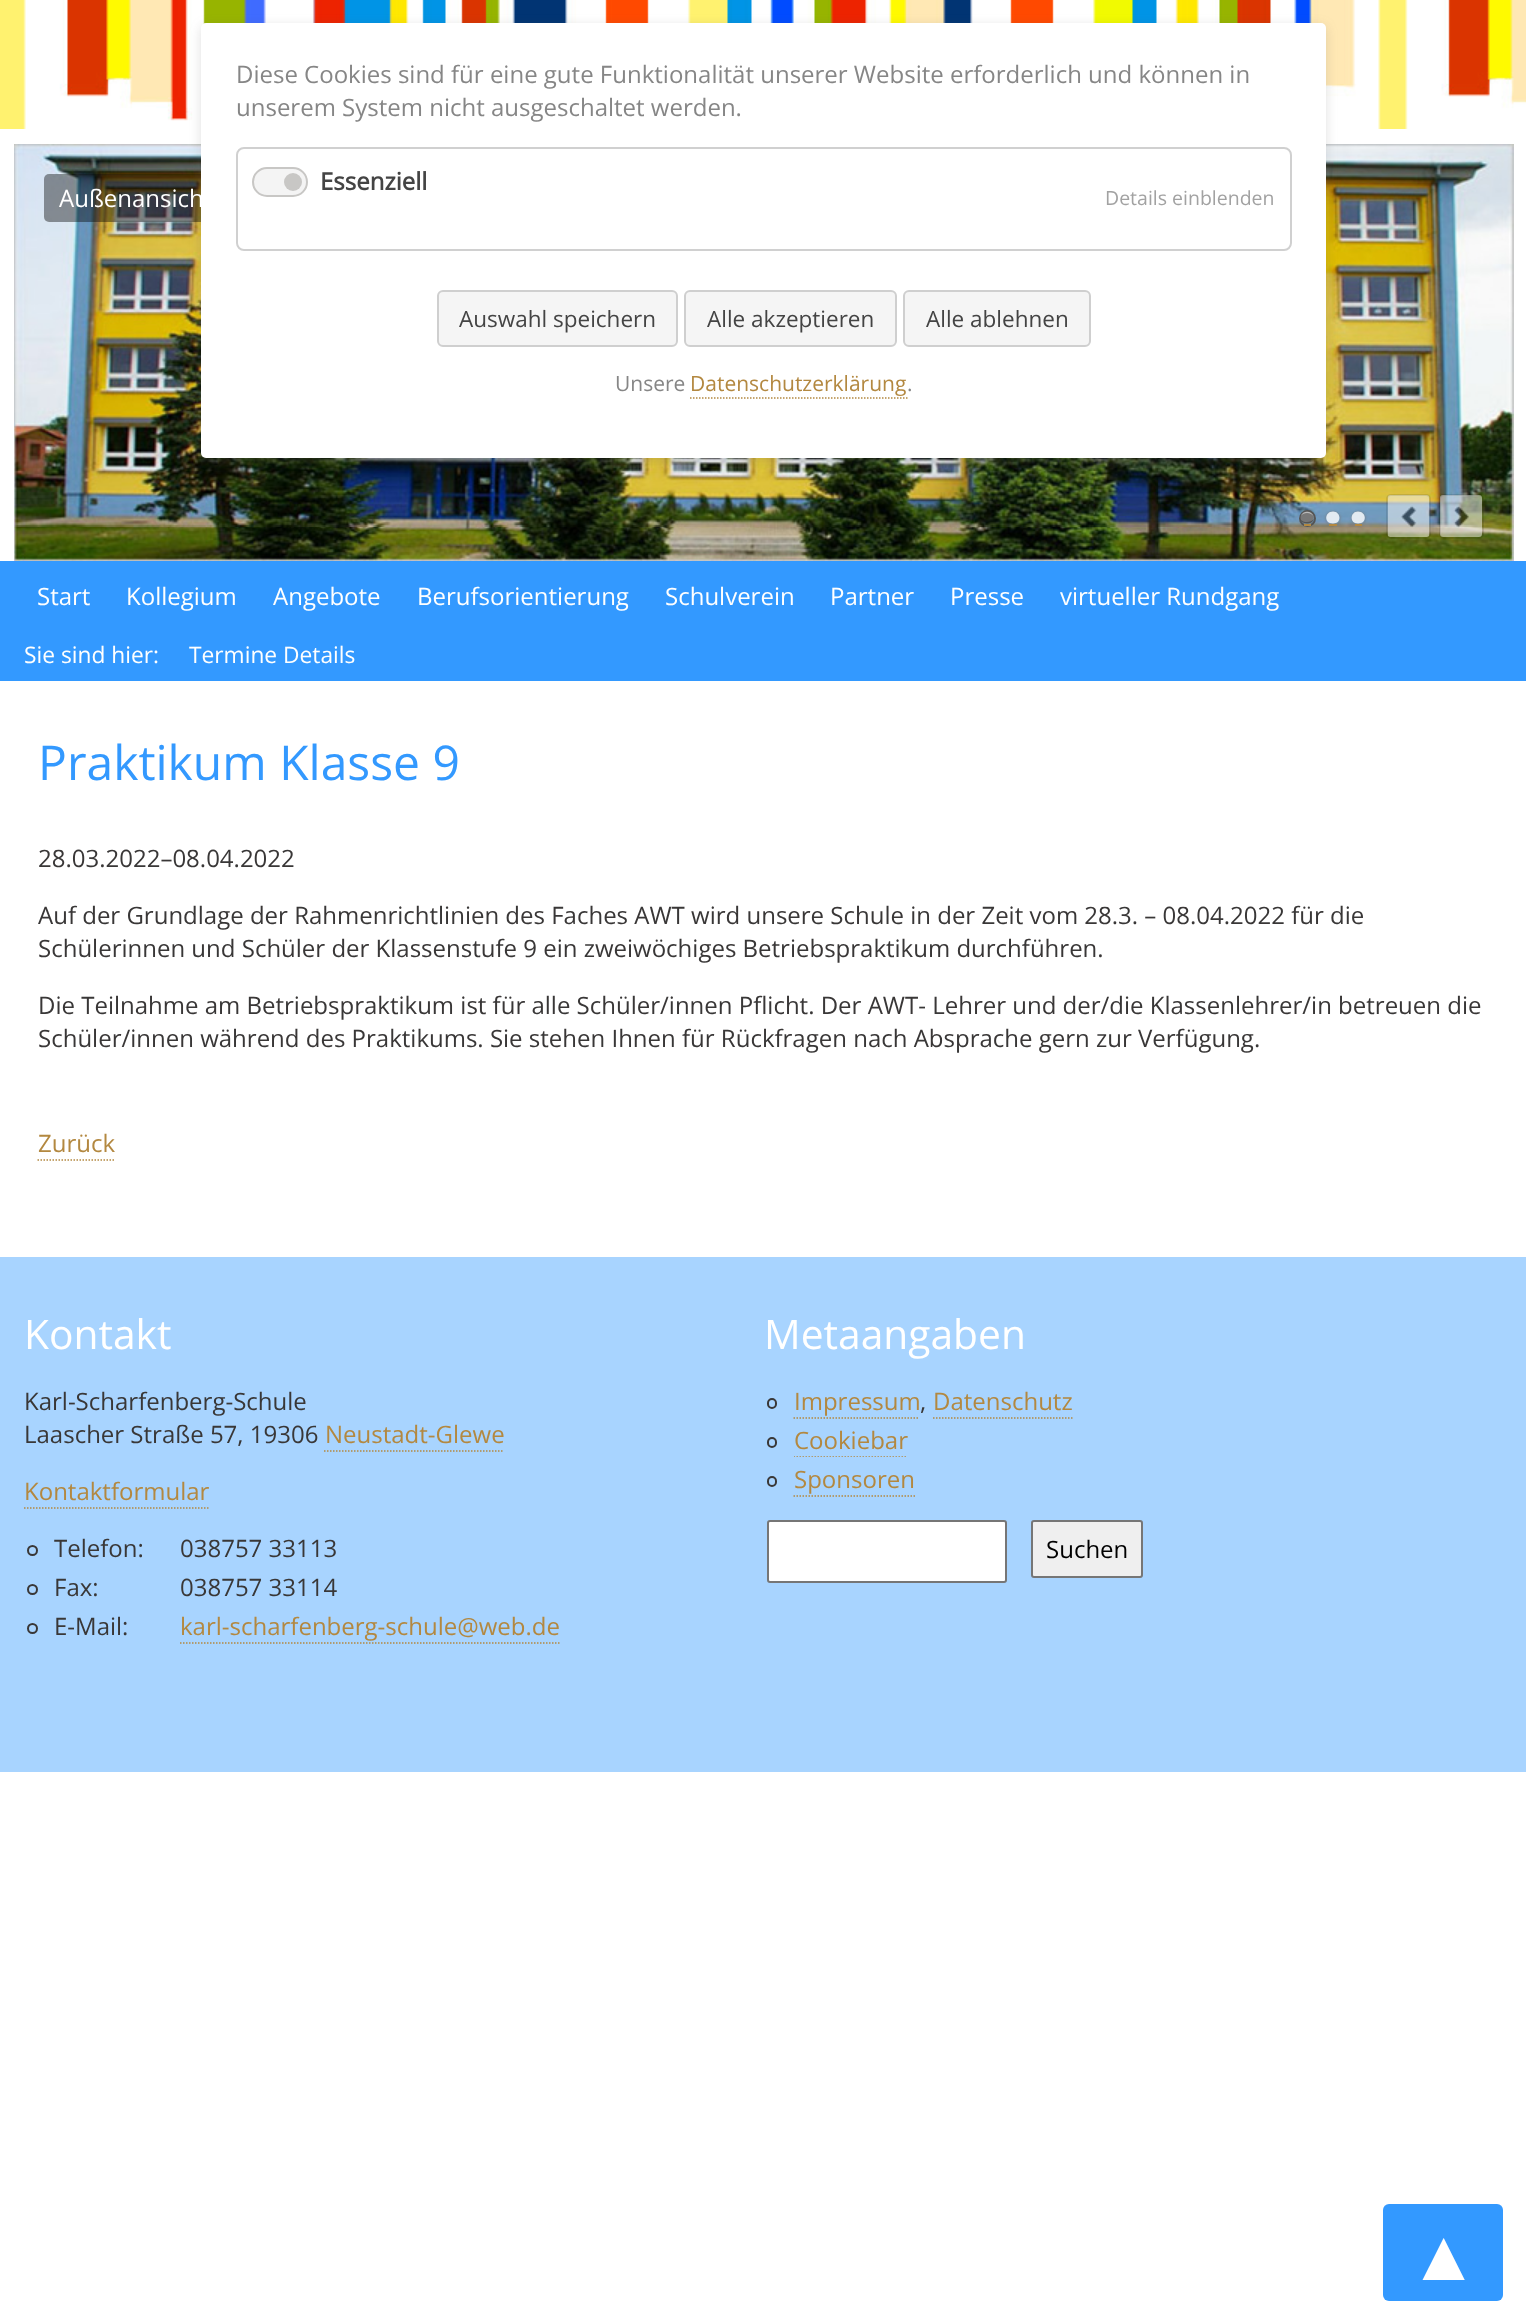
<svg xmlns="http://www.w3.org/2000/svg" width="1526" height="2324">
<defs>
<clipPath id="clip1"><path d="M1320 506h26v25h-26zm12.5 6h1c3.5 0 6.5 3 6.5 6.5c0 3.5-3 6.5-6.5 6.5h-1c-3.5 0-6.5-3-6.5-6.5c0-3.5 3-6.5 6.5-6.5z" clip-rule="evenodd"/></clipPath>
<clipPath id="clip2"><path d="M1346 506h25v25h-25zm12.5 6c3.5 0 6.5 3 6.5 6.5c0 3.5-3 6.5-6.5 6.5c-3.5 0-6.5-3-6.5-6.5c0-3.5 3-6.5 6.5-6.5z" clip-rule="evenodd"/></clipPath>
<clipPath id="clip3"><rect x="794" y="1424" width="709" height="33"/></clipPath>
</defs>
<rect width="100%" height="100%" fill="#fff"/>
<image x="0" y="0" width="1526" height="129" href="media/1.png"/>
<image x="14" y="144" width="1500" height="417" href="media/2.png"/>
<rect x="44" y="174" width="519" height="48" rx="5" fill="#00000066"/>
<rect x="201" y="26" width="1125" height="435" rx="5" fill="#63636333" filter="blur(6px)"/>
<rect x="201" y="23" width="1125" height="435" rx="5" fill="#fff"/>
<text x="236" y="83" style="font-family:Open Sans;font-size:24px;fill:#868686">Diese Cookies sind für eine gute Funktionalität unserer Website erforderlich und können in</text>
<text x="236" y="116" style="font-family:Open Sans;font-size:24px;fill:#868686">unserem System nicht ausgeschaltet werden.</text>
<rect x="237" y="148" width="1054" height="102" rx="7" fill="none" stroke="#d0d0d0" stroke-width="2"/>
<rect x="253" y="168" width="54" height="28" rx="14" fill="#f4f4f4" stroke="#c8c7c5" stroke-width="2"/>
<text x="320" y="190" style="font-family:Open Sans;font-size:24px;font-weight:bold;fill:#444">Essenziell</text>
<circle cx="293" cy="182" r="9" fill="#c8c7c5"/>
<text x="1105" y="205" style="font-family:Open Sans;font-size:19.5px;fill:#a2a2a2">Details einblenden</text>
<rect x="438" y="291" width="239" height="55" rx="5" fill="#f5f5f5" stroke="#cfcfcf" stroke-width="2"/>
<text x="459" y="327" style="font-family:Open Sans;font-size:22.5px;fill:#444">Auswahl speichern</text>
<rect x="685" y="291" width="211" height="55" rx="5" fill="#f5f5f5" stroke="#cfcfcf" stroke-width="2"/>
<text x="707" y="327" style="font-family:Open Sans;font-size:22.5px;fill:#444">Alle akzeptieren</text>
<rect x="904" y="291" width="186" height="55" rx="5" fill="#f5f5f5" stroke="#cfcfcf" stroke-width="2"/>
<text x="926" y="327" style="font-family:Open Sans;font-size:22.5px;fill:#444">Alle ablehnen</text>
<text x="615" y="391" style="font-family:Open Sans;font-size:21px;fill:#868686">Unsere</text>
<text x="690" y="391" style="font-family:Open Sans;font-size:21px;fill:#b38840">Datenschutzerklärung</text>
<path d="M690 398h217.5" fill="none" stroke="#b38840" stroke-width="1.5" stroke-dasharray="1.5 1.5"/>
<text x="907" y="391" style="font-family:Open Sans;font-size:21px;fill:#868686">.</text>
<text x="59" y="207" style="font-family:Open Sans;font-size:24px;fill:#fff">Außenansich</text>
<image x="1387" y="495" width="43" height="42" href="media/3.png"/>
<rect x="1387" y="495" width="43" height="43" rx="4" fill="none" stroke="#0000001a" stroke-width="2"/>
<image x="1440" y="495" width="42" height="42" href="media/4.png"/>
<rect x="1440" y="495" width="43" height="43" rx="4" fill="none" stroke="#0000001a" stroke-width="2"/>
<circle cx="1307.5" cy="518.5" r="7.5" fill="none" stroke="#555" stroke-width="2"/>
<path d="M1307 511.5c8.5 0 9.5 12 0 12c-9 0-8-12 0-12z" fill="#777"/>
<path d="M1300.5 519.5c1.5 5.5 12 5.5 13.5-.5c-3 4-10.5 4-13.5 .5z" fill="#0000004d"/>
<path d="M1307 513c3 0 5.5 1.5 6.5 3.5c-1.5-6-10-6.5-12.5-1c1.5-1.5 3.5-2.5 6-2.5z" fill="#ffffff80"/>
<rect x="1304" y="524" width="7" height="2" fill="#b38840"/>
<g clip-path="url(#clip1)">
<rect x="1326" y="512" width="14" height="13" rx="6.5" fill="#777" filter="blur(1.5px)"/>
</g>
<path d="M1333 511.5c8 0 9 12 0 12c-9.5 0-8.5-12 0-12z" fill="#ffffffcc"/>
<rect x="1329" y="524" width="8" height="2" fill="#b38840"/>
<g clip-path="url(#clip2)">
<rect x="1352" y="512" width="13" height="13" rx="6.5" fill="#777" filter="blur(1.5px)"/>
</g>
<path d="M1358 511.5c8.5 0 9.5 12 0 12c-9 0-8-12 0-12z" fill="#ffffffcc"/>
<rect x="1355" y="524" width="7" height="2" fill="#b38840"/>
<rect y="561" width="1526" height="120" fill="#39f"/>
<text x="37" y="605" style="font-family:Open Sans;font-size:24px;fill:#fff">Start</text>
<text x="126" y="605" style="font-family:Open Sans;font-size:24px;fill:#fff">Kollegium</text>
<text x="273" y="605" style="font-family:Open Sans;font-size:24px;fill:#fff">Angebote</text>
<text x="417" y="605" style="font-family:Open Sans;font-size:24px;fill:#fff">Berufsorientierung</text>
<text x="665" y="605" style="font-family:Open Sans;font-size:24px;fill:#fff">Schulverein</text>
<text x="830" y="605" style="font-family:Open Sans;font-size:24px;fill:#fff">Partner</text>
<text x="950" y="605" style="font-family:Open Sans;font-size:24px;fill:#fff">Presse</text>
<text x="1060" y="605" style="font-family:Open Sans;font-size:24px;fill:#fff">virtueller Rundgang</text>
<text x="24" y="663" style="font-family:Open Sans;font-size:22.75px;fill:#fff">Sie sind hier:</text>
<text x="189" y="663" style="font-family:Open Sans;font-size:22.75px;fill:#fff">Termine Details</text>
<text x="38" y="780" style="font-family:Open Sans;font-size:48px;fill:#39f">Praktikum Klasse 9</text>
<text x="38" y="867" style="font-family:Open Sans;font-size:24px;fill:#393737">28.03.2022–08.04.2022</text>
<text x="38" y="924" style="font-family:Open Sans;font-size:24px;fill:#393737">Auf der Grundlage der Rahmenrichtlinien des Faches AWT wird unsere Schule in der Zeit vom 28.3. – 08.04.2022 für die</text>
<text x="38" y="957" style="font-family:Open Sans;font-size:24px;fill:#393737">Schülerinnen und Schüler der Klassenstufe 9 ein zweiwöchiges Betriebspraktikum durchführen.</text>
<text x="38" y="1014" style="font-family:Open Sans;font-size:24px;fill:#393737">Die Teilnahme am Betriebspraktikum ist für alle Schüler/innen Pflicht. Der AWT- Lehrer und der/die Klassenlehrer/in betreuen die</text>
<text x="38" y="1047" style="font-family:Open Sans;font-size:24px;fill:#393737">Schüler/innen während des Praktikums. Sie stehen Ihnen für Rückfragen nach Absprache gern zur Verfügung.</text>
<text x="38" y="1152" style="font-family:Open Sans;font-size:24px;fill:#b38840">Zurück</text>
<path d="M37.5 1160h76.5" fill="none" stroke="#b38840" stroke-width="1.5" stroke-dasharray="1.5 1.5"/>
<rect y="1257" width="1526" height="515" fill="#a8d4ff"/>
<text x="24" y="1349" style="font-family:Open Sans;font-size:40.75px;fill:#fff">Kontakt</text>
<text x="24" y="1410" style="font-family:Open Sans;font-size:24px;fill:#393737">Karl-Scharfenberg-Schule</text>
<text x="24" y="1443" style="font-family:Open Sans;font-size:24px;fill:#393737">Laascher Straße 57, 19306</text>
<text x="325" y="1443" style="font-family:Open Sans;font-size:24px;fill:#b38840">Neustadt-Glewe</text>
<path d="M324 1451h180" fill="none" stroke="#b38840" stroke-width="1.5" stroke-dasharray="1.5 1.5"/>
<text x="24" y="1500" style="font-family:Open Sans;font-size:24px;fill:#b38840">Kontaktformular</text>
<path d="M24 1508h186" fill="none" stroke="#b38840" stroke-width="1.5" stroke-dasharray="1.5 1.5"/>
<circle cx="32.5" cy="1550.5" r="4.5" fill="none" stroke="#393737" stroke-width="2"/>
<text x="54" y="1557" style="font-family:Open Sans;font-size:24px;fill:#393737">Telefon:</text>
<text x="180" y="1557" style="font-family:Open Sans;font-size:24px;fill:#393737">038757 33113</text>
<circle cx="32.5" cy="1589.5" r="4.5" fill="none" stroke="#393737" stroke-width="2"/>
<text x="54" y="1596" style="font-family:Open Sans;font-size:24px;fill:#393737">Fax:</text>
<text x="180" y="1596" style="font-family:Open Sans;font-size:24px;fill:#393737">038757 33114</text>
<circle cx="32.5" cy="1628.5" r="4.5" fill="none" stroke="#393737" stroke-width="2"/>
<text x="54" y="1635" style="font-family:Open Sans;font-size:24px;fill:#393737">E-Mail:</text>
<text x="180" y="1635" style="font-family:Open Sans;font-size:24px;fill:#b38840">karl-scharfenberg-schule@web.de</text>
<path d="M180 1643h379.5" fill="none" stroke="#b38840" stroke-width="1.5" stroke-dasharray="1.5 1.5"/>
<text x="764" y="1349" style="font-family:Open Sans;font-size:40.75px;fill:#fff">Metaangaben</text>
<rect x="768" y="1399" width="8" height="9" rx="4" fill="none" stroke="#393737" stroke-width="2"/>
<text x="794" y="1410" style="font-family:Open Sans;font-size:24px;fill:#b38840">Impressum</text>
<path d="M793.5 1418h126" fill="none" stroke="#b38840" stroke-width="1.5" stroke-dasharray="1.5 1.5"/>
<text x="933" y="1410" style="font-family:Open Sans;font-size:24px;fill:#b38840">Datenschutz</text>
<path d="M933 1418h139.5" fill="none" stroke="#b38840" stroke-width="1.5" stroke-dasharray="1.5 1.5"/>
<text x="920" y="1410" style="font-family:Open Sans;font-size:24px;fill:#393737">,</text>
<rect x="768" y="1438" width="8" height="9" rx="4" fill="none" stroke="#393737" stroke-width="2"/>
<text x="794" y="1449" style="font-family:Open Sans;font-size:24px;fill:#b38840">Cookiebar</text>
<g clip-path="url(#clip3)">
<path d="M793.5 1457h114" fill="none" stroke="#b38840" stroke-width="1.5" stroke-dasharray="1.5 1.5"/>
</g>
<rect x="768" y="1477" width="8" height="9" rx="4" fill="none" stroke="#393737" stroke-width="2"/>
<text x="794" y="1488" style="font-family:Open Sans;font-size:24px;fill:#b38840">Sponsoren</text>
<path d="M793.5 1496h121.5" fill="none" stroke="#b38840" stroke-width="1.5" stroke-dasharray="1.5 1.5"/>
<rect x="768" y="1521" width="238" height="61" rx="2" fill="#fff" stroke="#767676" stroke-width="2"/>
<rect x="1032" y="1521" width="110" height="56" rx="2" fill="#efefef" stroke="#767676" stroke-width="2"/>
<text x="1046" y="1558" style="font-family:Open Sans;font-size:24px;fill:#000">Suchen</text>
<rect x="1383" y="2204" width="120" height="97" rx="6" fill="#39f"/>
<text x="1408" y="2280" style="font-family:Liberation Sans;font-size:72px;fill:#fff">▲</text>
</svg>
